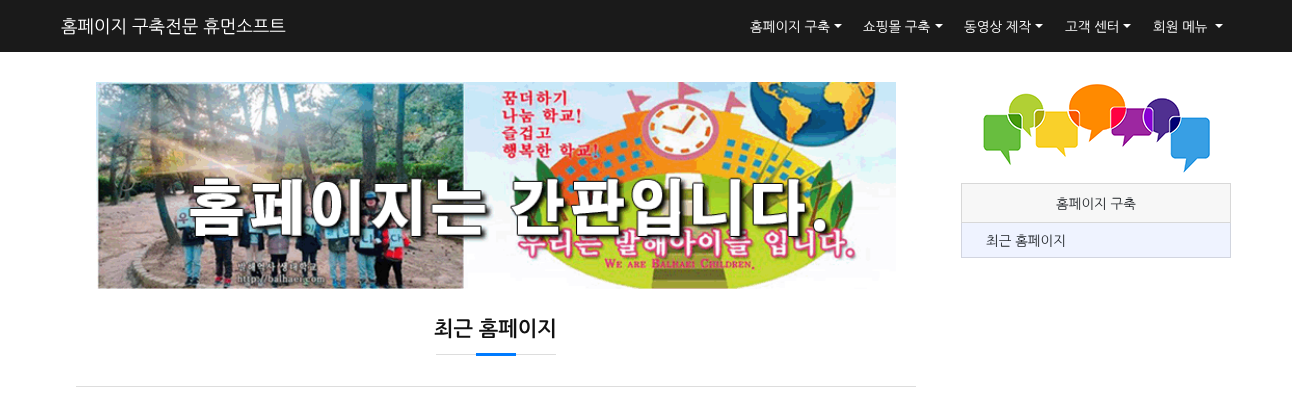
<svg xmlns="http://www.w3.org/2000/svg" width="1292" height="401">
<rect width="100%" height="100%" fill="#fff"/>
<rect width="1292" height="52" fill="#1a1a1a"/>
<text x="61" y="32" style="font-family:NanumGothic;font-size:17.6px;fill:#fff">홈페이지 구축전문 휴먼소프트</text>
<text x="750" y="31" style="font-family:NanumGothic;font-size:13.5px;fill:#fff">홈페이지 구축</text>
<path d="M834 24h8l-4 4z" fill="#fff"/>
<text x="863" y="31" style="font-family:NanumGothic;font-size:13.5px;fill:#fff">쇼핑몰 구축</text>
<path d="M935 24h8l-4 4z" fill="#fff"/>
<text x="964" y="31" style="font-family:NanumGothic;font-size:13.5px;fill:#fff">동영상 제작</text>
<path d="M1035 24h8l-4 4z" fill="#fff"/>
<text x="1065" y="31" style="font-family:NanumGothic;font-size:13.5px;fill:#fff">고객 센터</text>
<path d="M1123 24h8l-4 4z" fill="#fff"/>
<text x="1153" y="31" style="font-family:NanumGothic;font-size:13.5px;fill:#fff">회원 메뉴</text>
<path d="M1215 24h8l-4 4z" fill="#fff"/>
<image x="983" y="84" width="227" height="89" href="media/1.png"/>
<rect x="961.5" y="183.5" width="269" height="39" fill="#f7f7f7" stroke="#d8d8d8"/>
<text x="1056" y="208" style="font-family:NanumGothic;font-size:13.5px;fill:#212529">홈페이지 구축</text>
<rect x="961" y="223" width="270" height="35" fill="#eff3ff"/>
<path d="M1231 223v35l-1-1v-34z" fill="#d1d5df"/>
<path d="M1231 258h-270l1-1h268z" fill="#0000001f"/>
<path d="M961 258v-35h1v34z" fill="#0000001f"/>
<text x="986" y="245" style="font-family:NanumGothic;font-size:13.5px;fill:#212529">최근 홈페이지</text>
<image x="96" y="82" width="800" height="207" href="media/2.png"/>
<text x="434" y="335" style="font-family:NanumGothic;font-size:20.75px;font-weight:bold;fill:#111">최근 홈페이지</text>
<rect x="436" y="354" width="120" height="1" fill="#ddd"/>
<rect x="476" y="353" width="40" height="3" fill="#007bff"/>
<rect x="76" y="386" width="840" height="1" fill="#ddd"/>
</svg>
